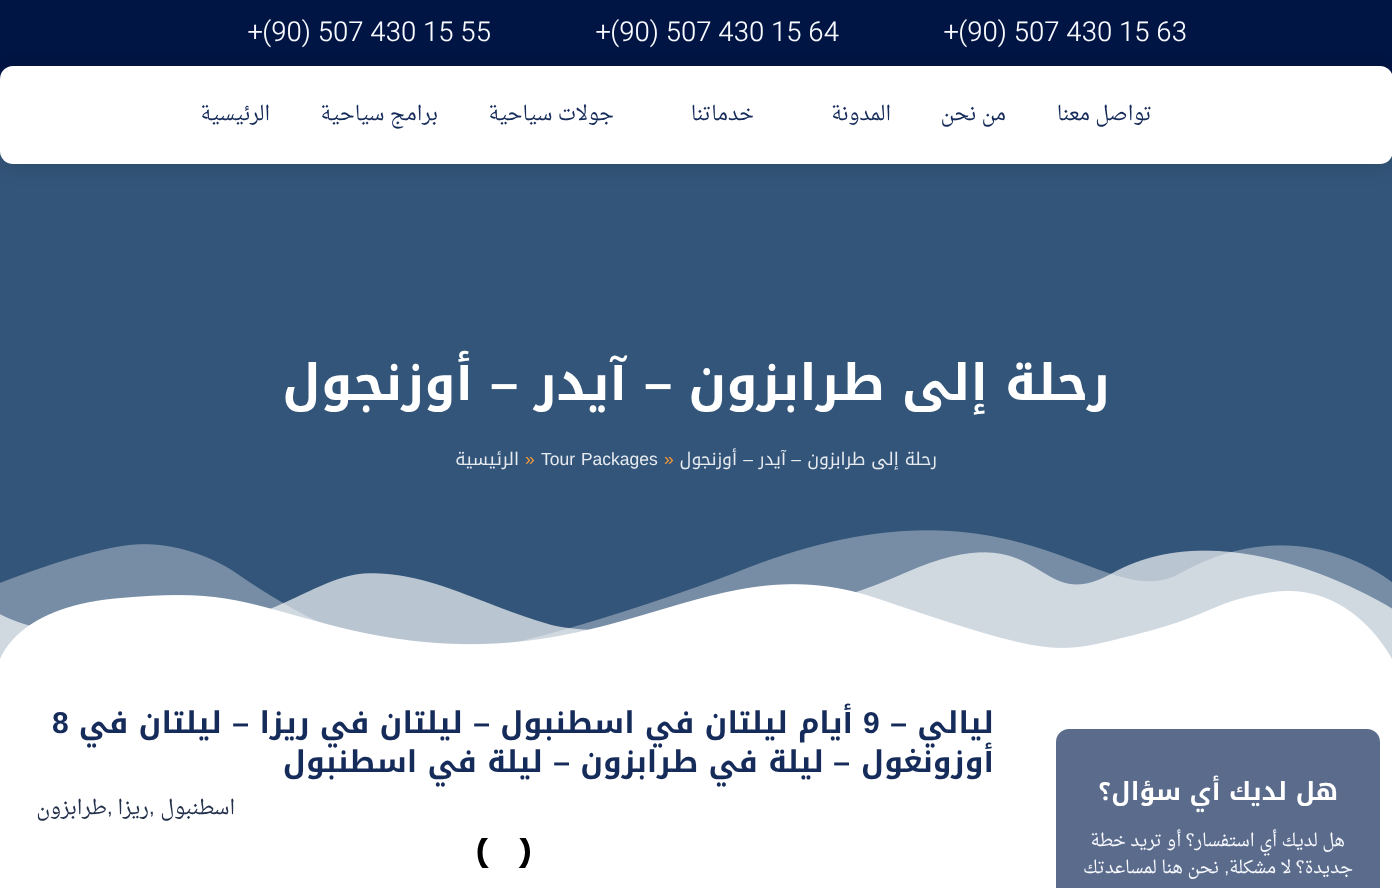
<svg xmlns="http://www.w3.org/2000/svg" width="1392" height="888">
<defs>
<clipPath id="clip1"><rect x="13" y="838" width="981" height="30"/></clipPath>
</defs>
<rect width="100%" height="100%" fill="#fff"/>
<rect y="151" width="1392" height="508" fill="#335579"/>
<rect width="1392" height="79" fill="#001544"/>
<text x="944" y="41" style="font-family:Heebo;font-size:27.5px;font-weight:300;fill:#f8faff">+(90) 507 430 15 63</text>
<text x="596" y="41" style="font-family:Heebo;font-size:27.5px;font-weight:300;fill:#f8faff">+(90) 507 430 15 64</text>
<text x="248" y="41" style="font-family:Heebo;font-size:27.5px;font-weight:300;fill:#f8faff">+(90) 507 430 15 55</text>
<rect y="70" width="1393" height="98" rx="13" fill="#0000001a" filter="blur(9.5px)"/>
<rect y="66" width="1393" height="98" rx="13" fill="#fff"/>
<text x="1152" y="120" style="font-family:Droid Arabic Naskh;font-size:20px;direction:rtl;fill:#152b5a">تواصل معنا</text>
<text x="1006" y="120" style="font-family:Droid Arabic Naskh;font-size:20px;direction:rtl;fill:#152b5a">من نحن</text>
<text x="891" y="120" style="font-family:Droid Arabic Naskh;font-size:20px;direction:rtl;fill:#152b5a">المدونة</text>
<text x="754" y="120" style="font-family:Droid Arabic Naskh;font-size:20px;direction:rtl;fill:#152b5a">خدماتنا</text>
<text x="614" y="120" style="font-family:Droid Arabic Naskh;font-size:20px;direction:rtl;fill:#152b5a">جولات سياحية</text>
<text x="438" y="120" style="font-family:Droid Arabic Naskh;font-size:20px;direction:rtl;fill:#152b5a">برامج سياحية</text>
<text x="270" y="120" style="font-family:Droid Arabic Naskh;font-size:20px;direction:rtl;fill:#152b5a">الرئيسية</text>
<text x="1110" y="400" style="font-family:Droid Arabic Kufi;font-size:50px;font-weight:bold;direction:rtl;fill:#fff">رحلة إلى طرابزون</text>
<text x="672" y="400" style="font-family:Liberation Sans;font-size:50px;font-weight:bold;direction:rtl;fill:#fff">–</text>
<text x="627" y="400" style="font-family:Droid Arabic Kufi;font-size:50px;font-weight:bold;direction:rtl;fill:#fff">آيدر</text>
<text x="518" y="400" style="font-family:Liberation Sans;font-size:50px;font-weight:bold;direction:rtl;fill:#fff">–</text>
<text x="473" y="400" style="font-family:Droid Arabic Kufi;font-size:50px;font-weight:bold;direction:rtl;fill:#fff">أوزنجول</text>
<text x="937" y="465" style="font-family:Droid Arabic Kufi;font-size:17.5px;direction:rtl;fill:#e7ebf0">رحلة إلى طرابزون</text>
<text x="801" y="465" style="font-family:Liberation Sans;font-size:17.5px;direction:rtl;fill:#e7ebf0">–</text>
<text x="786" y="465" style="font-family:Droid Arabic Kufi;font-size:17.5px;direction:rtl;fill:#e7ebf0">آيدر</text>
<text x="753" y="465" style="font-family:Liberation Sans;font-size:17.5px;direction:rtl;fill:#e7ebf0">–</text>
<text x="737" y="465" style="font-family:Droid Arabic Kufi;font-size:17.5px;direction:rtl;fill:#e7ebf0">أوزنجول</text>
<text x="664" y="465" style="font-family:Liberation Sans;font-size:17.5px;fill:#ff9c34">»</text>
<text x="541" y="465" word-spacing="1" style="font-family:Liberation Sans;font-size:17.5px;fill:#e7ebf0">Tour Packages</text>
<text x="525" y="465" style="font-family:Liberation Sans;font-size:17.5px;fill:#ff9c34">»</text>
<text x="519" y="465" style="font-family:Droid Arabic Kufi;font-size:17.5px;direction:rtl;fill:#e7ebf0">الرئيسية</text>
<image x="0" y="530" width="1392" height="130" href="media/1.png"/>
<rect x="1056" y="729" width="324" height="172" rx="13" fill="#5b6b8c"/>
<text x="1338" y="800" style="font-family:Droid Arabic Kufi;font-size:25px;font-weight:bold;direction:rtl;fill:#fff">هل لديك أي سؤال؟</text>
<text x="1345" y="846" style="font-family:Droid Arabic Naskh;font-size:17.5px;direction:rtl;fill:#f8faff">هل لديك أي استفسار؟ أو تريد خطة</text>
<text x="1353" y="873" style="font-family:Droid Arabic Naskh;font-size:17.5px;direction:rtl;fill:#f8faff">جديدة؟ لا مشكلة</text>
<text x="1229" y="873" style="font-family:Liberation Sans;font-size:17.5px;direction:rtl;fill:#f8faff">,</text>
<text x="1219" y="873" style="font-family:Droid Arabic Naskh;font-size:17.5px;direction:rtl;fill:#f8faff">نحن هنا لمساعدتك</text>
<text x="994" y="733" style="font-family:Droid Arabic Kufi;font-size:30px;font-weight:bold;direction:rtl;fill:#152b5a">ليالي</text>
<text x="907" y="733" style="font-family:Liberation Sans;font-size:30px;font-weight:bold;direction:rtl;fill:#152b5a">–</text>
<text x="863" y="733" style="font-family:Liberation Sans;font-size:30px;font-weight:bold;fill:#152b5a">9</text>
<text x="853" y="733" style="font-family:Droid Arabic Kufi;font-size:30px;font-weight:bold;direction:rtl;fill:#152b5a">أيام</text>
<text x="788" y="733" style="font-family:Droid Arabic Kufi;font-size:30px;font-weight:bold;direction:rtl;fill:#152b5a">ليلتان في اسطنبول</text>
<text x="490" y="733" style="font-family:Liberation Sans;font-size:30px;font-weight:bold;direction:rtl;fill:#152b5a">–</text>
<text x="463" y="733" style="font-family:Droid Arabic Kufi;font-size:30px;font-weight:bold;direction:rtl;fill:#152b5a">ليلتان في ريزا</text>
<text x="249" y="733" style="font-family:Liberation Sans;font-size:30px;font-weight:bold;direction:rtl;fill:#152b5a">–</text>
<text x="222" y="733" style="font-family:Droid Arabic Kufi;font-size:30px;font-weight:bold;direction:rtl;fill:#152b5a">ليلتان في</text>
<text x="52" y="733" style="font-family:Liberation Sans;font-size:30px;font-weight:bold;fill:#152b5a">8</text>
<text x="994" y="772" style="font-family:Droid Arabic Kufi;font-size:30px;font-weight:bold;direction:rtl;fill:#152b5a">أوزونغول</text>
<text x="850" y="772" style="font-family:Liberation Sans;font-size:30px;font-weight:bold;direction:rtl;fill:#152b5a">–</text>
<text x="824" y="772" style="font-family:Droid Arabic Kufi;font-size:30px;font-weight:bold;direction:rtl;fill:#152b5a">ليلة في طرابزون</text>
<text x="570" y="772" style="font-family:Liberation Sans;font-size:30px;font-weight:bold;direction:rtl;fill:#152b5a">–</text>
<text x="543" y="772" style="font-family:Droid Arabic Kufi;font-size:30px;font-weight:bold;direction:rtl;fill:#152b5a">ليلة في اسطنبول</text>
<text x="235" y="814" style="font-family:Droid Arabic Naskh;font-size:20px;direction:rtl;fill:#23304b">اسطنبول</text>
<text x="149" y="814" style="font-family:Liberation Sans;font-size:20px;fill:#23304b">,</text>
<text x="149" y="814" style="font-family:Droid Arabic Naskh;font-size:20px;direction:rtl;fill:#23304b">ريزا</text>
<text x="107" y="814" style="font-family:Liberation Sans;font-size:20px;fill:#23304b">,</text>
<text x="107" y="814" style="font-family:Droid Arabic Naskh;font-size:20px;direction:rtl;fill:#23304b">طرابزون</text>
<g clip-path="url(#clip1)">
<path d="M520.5 835.5c5.5 6 8 14 6.5 21.5c-5.5 28-47 24-47-4.5c0-6.5 2.5-12.5 7-17" fill="none" stroke="#000" stroke-width="5"/>
</g>
</svg>
